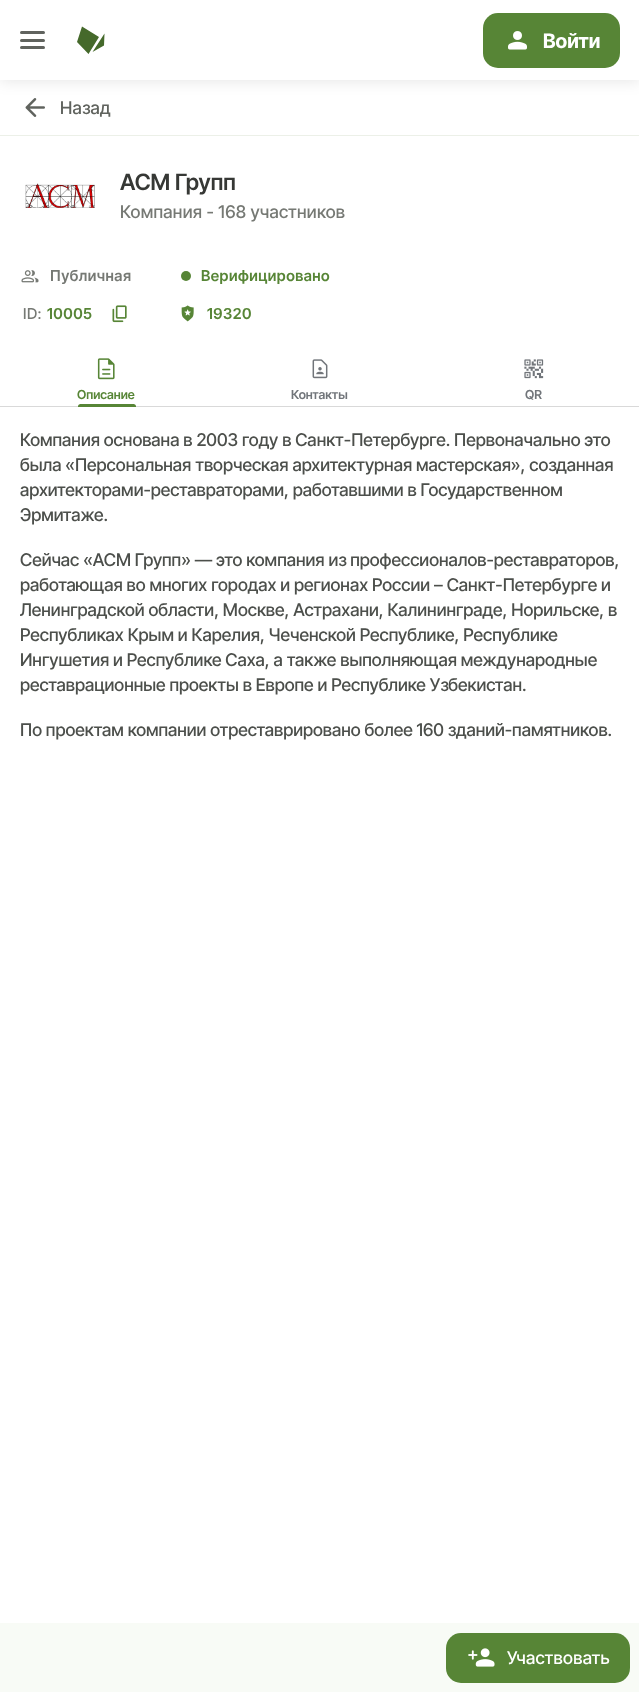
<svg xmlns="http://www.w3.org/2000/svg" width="639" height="1692">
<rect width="100%" height="100%" fill="#fff"/>
<image x="25" y="98" width="20" height="19" href="media/2.png"/>
<rect y="1" width="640" height="80" fill="#0000001a" filter="blur(7.5px)"/>
<rect width="639" height="80" fill="#fff"/>
<rect x="20" y="31" width="25" height="3" rx="1.5" fill="#60635e"/>
<rect x="20" y="39" width="25" height="3" rx="1.5" fill="#60635e"/>
<rect x="20" y="46" width="25" height="3" rx="1.5" fill="#60635e"/>
<path d="M82 26.5l17 10.5l-10.5 17l-11.5-12zm22.5 7l-12 18.5l11.5-6.5z" fill="#45692b" fill-rule="evenodd"/>
<rect x="483" y="13" width="137" height="55" rx="15" fill="#578536"/>
<image x="508" y="31" width="19" height="19" href="media/1.png"/>
<text x="543" y="48" style="font-family:Inter Tight;font-size:20px;font-weight:bold;fill:#fff">Войти</text>
<rect y="135" width="639" height="1" fill="#ecf0e8"/>
<text x="60" y="114" style="font-family:Inter Tight;font-size:17.5px;font-weight:500;letter-spacing:0.3px;fill:#60635e">Назад</text>
<image x="25" y="183" width="70" height="25" href="media/3.png"/>
<text x="120" y="190" style="font-family:Inter Tight;font-size:22.5px;font-weight:600;fill:#363835">АСМ Групп</text>
<text x="120" y="218" style="font-family:Inter Tight;font-size:17.5px;font-weight:500;letter-spacing:0.3px;fill:#767974">Компания - 168 участников</text>
<image x="21" y="270" width="18" height="13" href="media/4.png"/>
<text x="50" y="281" style="font-family:Inter Tight;font-size:15px;font-weight:600;letter-spacing:0.5px;fill:#767974">Публичная</text>
<circle cx="186" cy="276" r="5" fill="#578536"/>
<text x="201" y="281" style="font-family:Inter Tight;font-size:15px;font-weight:600;letter-spacing:0.5px;fill:#578536">Верифицировано</text>
<text x="23" y="319" style="font-family:Inter Tight;font-size:15px;font-weight:500;letter-spacing:0.5px;fill:#767974">ID:</text>
<text x="47" y="319" style="font-family:Inter Tight;font-size:15px;font-weight:600;letter-spacing:0.5px;fill:#578536">10005</text>
<image x="112" y="305" width="15" height="18" href="media/5.png"/>
<image x="181" y="305" width="13" height="17" href="media/6.png"/>
<text x="207" y="319" style="font-family:Inter Tight;font-size:15px;font-weight:600;letter-spacing:0.5px;fill:#578536">19320</text>
<rect y="406" width="639" height="1" fill="#d9d9d9"/>
<image x="97" y="358" width="18" height="22" href="media/7.png"/>
<text x="77" y="399" style="font-family:Inter Tight;font-size:12.5px;font-weight:600;fill:#578536">Описание</text>
<image x="312" y="359" width="16" height="20" href="media/8.png"/>
<text x="291" y="399" style="font-family:Inter Tight;font-size:12.5px;font-weight:600;fill:#71757a">Контакты</text>
<image x="524" y="359" width="20" height="20" href="media/9.png"/>
<text x="525" y="399" style="font-family:Inter Tight;font-size:12.5px;font-weight:600;fill:#71757a">QR</text>
<path d="M80.5 404h53c1.5 0 2.5 1 2.5 2.5v.5h-58v-.5c0-1.5 1-2.5 2.5-2.5z" fill="#578536"/>
<text x="20" y="446" style="font-family:Inter Tight;font-size:17.5px;font-weight:500;fill:#4c4f4b">Компания основана в 2003 году в Санкт-Петербурге. Первоначально это</text>
<text x="20" y="471" style="font-family:Inter Tight;font-size:17.5px;font-weight:500;fill:#4c4f4b">была «Персональная творческая архитектурная мастерская», созданная</text>
<text x="20" y="496" style="font-family:Inter Tight;font-size:17.5px;font-weight:500;fill:#4c4f4b">архитекторами-реставраторами, работавшими в Государственном</text>
<text x="20" y="521" style="font-family:Inter Tight;font-size:17.5px;font-weight:500;fill:#4c4f4b">Эрмитаже.</text>
<text x="20" y="566" style="font-family:Inter Tight;font-size:17.5px;font-weight:500;fill:#4c4f4b">Сейчас «АСМ Групп» — это компания из профессионалов-реставраторов,</text>
<text x="20" y="591" style="font-family:Inter Tight;font-size:17.5px;font-weight:500;fill:#4c4f4b">работающая во многих городах и регионах России – Санкт-Петербурге и</text>
<text x="20" y="616" style="font-family:Inter Tight;font-size:17.5px;font-weight:500;fill:#4c4f4b">Ленинградской области, Москве, Астрахани, Калининграде, Норильске, в</text>
<text x="20" y="641" style="font-family:Inter Tight;font-size:17.5px;font-weight:500;fill:#4c4f4b">Республиках Крым и Карелия, Чеченской Республике, Республике</text>
<text x="20" y="666" style="font-family:Inter Tight;font-size:17.5px;font-weight:500;fill:#4c4f4b">Ингушетия и Республике Саха, а также выполняющая международные</text>
<text x="20" y="691" style="font-family:Inter Tight;font-size:17.5px;font-weight:500;fill:#4c4f4b">реставрационные проекты в Европе и Республике Узбекистан.</text>
<text x="20" y="736" style="font-family:Inter Tight;font-size:17.5px;font-weight:500;fill:#4c4f4b">По проектам компании отреставрировано более 160 зданий-памятников.</text>
<rect y="1623" width="639" height="69" fill="#f8fbf6"/>
<rect x="446" y="1633" width="184" height="50" rx="15" fill="#578536"/>
<image x="468" y="1648" width="27" height="19" href="media/10.png"/>
<text x="507" y="1664" style="font-family:Inter Tight;font-size:17.5px;font-weight:500;letter-spacing:0.3px;fill:#fff">Участвовать</text>
</svg>
